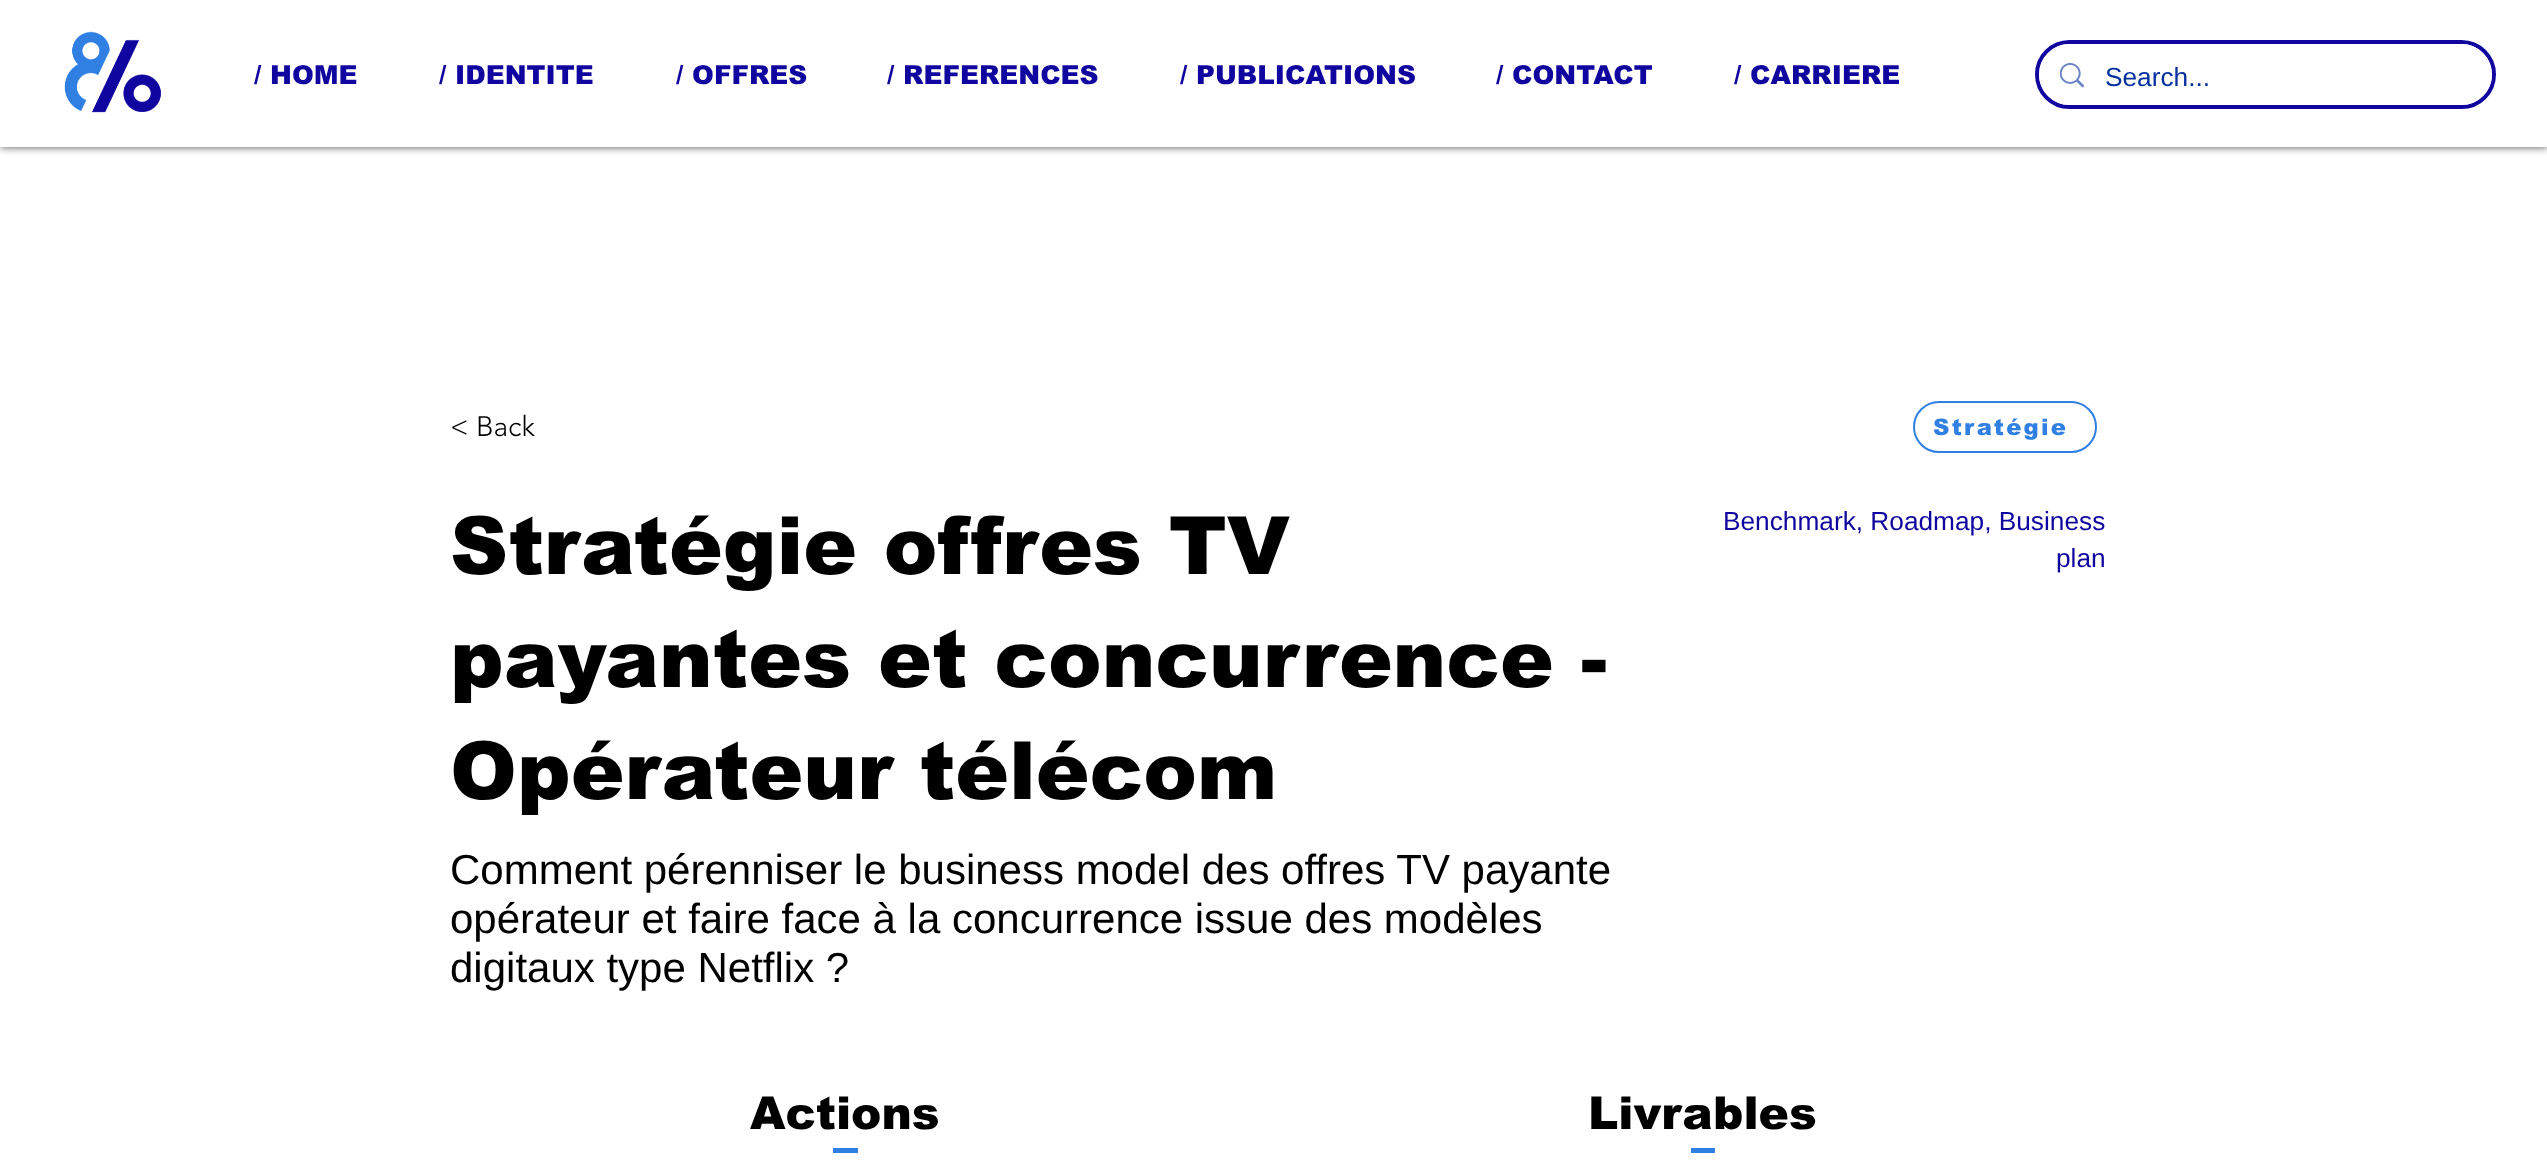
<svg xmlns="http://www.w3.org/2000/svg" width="2547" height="1166">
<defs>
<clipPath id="clip1"><rect x="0" y="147" width="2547" height="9"/></clipPath>
</defs>
<rect width="100%" height="100%" fill="#fff"/>
<g clip-path="url(#clip1)">
<rect width="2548" height="147" fill="#000000b3" filter="blur(4.5px)"/>
</g>
<image x="64" y="31" width="97" height="82" href="media/1.png"/>
<text x="254" y="84" style="font-family:arial;font-size:26.25px;font-weight:900;fill:#10069f">/ HOME</text>
<text x="439" y="84" style="font-family:arial;font-size:26.25px;font-weight:900;fill:#10069f">/ IDENTITE</text>
<text x="676" y="84" style="font-family:arial;font-size:26.25px;font-weight:900;fill:#10069f">/ OFFRES</text>
<text x="887" y="84" style="font-family:arial;font-size:26.25px;font-weight:900;fill:#10069f">/ REFERENCES</text>
<text x="1180" y="84" style="font-family:arial;font-size:26.25px;font-weight:900;fill:#10069f">/ PUBLICATIONS</text>
<text x="1496" y="84" style="font-family:arial;font-size:26.25px;font-weight:900;fill:#10069f">/ CONTACT</text>
<text x="1734" y="84" style="font-family:arial;font-size:26.25px;font-weight:900;fill:#10069f">/ CARRIERE</text>
<rect x="2037" y="42" width="457" height="65" rx="32.5" fill="none" stroke="#10069f" stroke-width="4"/>
<rect x="2039" y="44" width="453" height="61" rx="30.5" fill="#fff"/>
<image x="2060" y="63" width="24" height="25" href="media/2.png"/>
<text x="2105" y="86" style="font-family:Liberation Sans;font-size:26.25px;fill:#06309f">Search...</text>
<text x="450" y="436" style="font-family:'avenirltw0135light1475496';font-size:28px;font-weight:300;fill:#000">&lt; Back</text>
<rect x="1914" y="402" width="182" height="50" rx="25" fill="none" stroke="#307fe2" stroke-width="2"/>
<text x="1933" y="435" style="font-family:arial;font-size:22.75px;font-weight:900;letter-spacing:2.25px;fill:#307fe2">Stratégie</text>
<text x="450" y="574" style="font-family:arial;font-size:80.5px;font-weight:900;fill:#000">Stratégie offres TV</text>
<text x="450" y="687" style="font-family:arial;font-size:80.5px;font-weight:900;fill:#000">payantes et concurrence -</text>
<text x="450" y="799" style="font-family:arial;font-size:80.5px;font-weight:900;fill:#000">Opérateur télécom</text>
<text x="1723" y="530" style="font-family:Liberation Sans;font-size:26.25px;fill:#10069f">Benchmark, Roadmap, Business</text>
<text x="2056" y="567" style="font-family:Liberation Sans;font-size:26.25px;fill:#10069f">plan</text>
<text x="450" y="884" style="font-family:Liberation Sans;font-size:42px;fill:#000">Comment pérenniser le business model des offres TV payante</text>
<text x="450" y="933" style="font-family:Liberation Sans;font-size:42px;fill:#000">opérateur et faire face à la concurrence issue des modèles</text>
<text x="450" y="982" style="font-family:Liberation Sans;font-size:42px;fill:#000">digitaux type Netflix ?</text>
<text x="750" y="1129" style="font-family:arial;font-size:45.5px;font-weight:900;fill:#000">Actions</text>
<rect x="833" y="1148" width="25" height="5" fill="#307fe2"/>
<text x="1588" y="1129" style="font-family:arial;font-size:45.5px;font-weight:900;fill:#000">Livrables</text>
<rect x="1691" y="1148" width="24" height="5" fill="#307fe2"/>
</svg>
